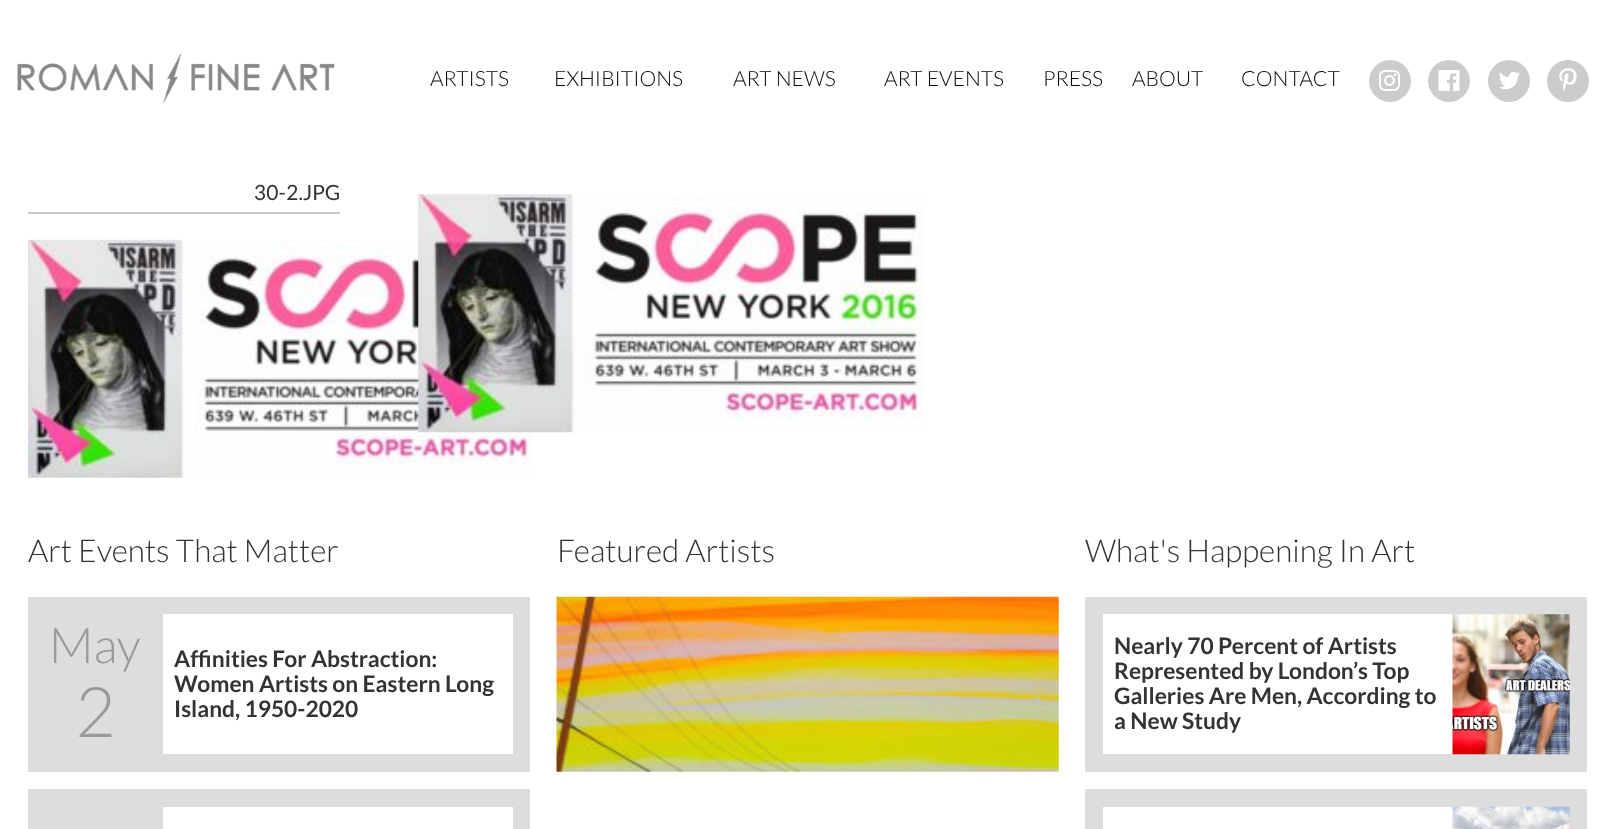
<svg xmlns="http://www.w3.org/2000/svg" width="1614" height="829">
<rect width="100%" height="100%" fill="#fff"/>
<image x="17" y="52" width="318" height="52" href="media/1.png"/>
<text x="430" y="86" style="font-family:Lato;font-size:21px;font-weight:300;fill:#080808">ARTISTS</text>
<text x="554" y="86" style="font-family:Lato;font-size:21px;font-weight:300;fill:#080808">EXHIBITIONS</text>
<text x="733" y="86" style="font-family:Lato;font-size:21px;font-weight:300;fill:#080808">ART NEWS</text>
<text x="884" y="86" style="font-family:Lato;font-size:21px;font-weight:300;fill:#080808">ART EVENTS</text>
<text x="1043" y="86" style="font-family:Lato;font-size:21px;font-weight:300;fill:#080808">PRESS</text>
<text x="1132" y="86" style="font-family:Lato;font-size:21px;font-weight:300;fill:#080808">ABOUT</text>
<text x="1241" y="86" style="font-family:Lato;font-size:21px;font-weight:300;fill:#080808">CONTACT</text>
<circle cx="1390" cy="81" r="21" fill="#ccc"/>
<image x="1379" y="70" width="21" height="21" href="media/2.png"/>
<circle cx="1449" cy="81" r="21" fill="#ccc"/>
<image x="1438" y="70" width="22" height="21" href="media/3.png"/>
<circle cx="1509" cy="81" r="21" fill="#ccc"/>
<image x="1499" y="71" width="21" height="19" href="media/4.png"/>
<circle cx="1568" cy="81" r="21" fill="#ccc"/>
<image x="1559" y="68" width="18" height="23" href="media/5.png"/>
<rect x="28" y="212" width="312" height="2" fill="#ccc"/>
<text x="254" y="200" style="font-family:Lato;font-size:21px;fill:#333">30-2.JPG</text>
<image x="28" y="239" width="506" height="239" href="media/6.png"/>
<image x="418" y="194" width="506" height="239" href="media/7.png"/>
<text x="28" y="562" style="font-family:Lato;font-size:31.5px;font-weight:300;fill:#333">Art Events That Matter</text>
<rect x="37" y="606" width="484" height="157" fill="none" stroke="#ddd" stroke-width="18"/>
<rect x="46" y="615" width="117" height="139" fill="#ddd"/>
<text x="49" y="663" style="font-family:Lato;font-size:49px;font-weight:300;fill:#999">May</text>
<text x="75" y="737" style="font-family:Lato;font-size:70px;font-weight:300;fill:#999">2</text>
<rect x="163" y="614" width="350" height="140" fill="#fff"/>
<text x="174" y="667" style="font-family:Lato;font-size:22.75px;font-weight:bold;fill:#333">Affinities For Abstraction:</text>
<text x="174" y="692" style="font-family:Lato;font-size:22.75px;font-weight:bold;fill:#333">Women Artists on Eastern Long</text>
<text x="174" y="717" style="font-family:Lato;font-size:22.75px;font-weight:bold;fill:#333">Island, 1950-2020</text>
<rect x="37" y="798" width="484" height="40" fill="none" stroke="#ddd" stroke-width="18"/>
<rect x="46" y="807" width="117" height="22" fill="#ddd"/>
<rect x="512" y="807" width="1" height="22" fill="#fff"/>
<text x="557" y="562" style="font-family:Lato;font-size:31.5px;font-weight:300;fill:#333">Featured Artists</text>
<image x="556" y="596" width="503" height="176" href="media/8.png"/>
<text x="1085" y="562" style="font-family:Lato;font-size:31.5px;font-weight:300;fill:#333">What's Happening In Art</text>
<rect x="1094" y="606" width="484" height="157" fill="none" stroke="#ddd" stroke-width="18"/>
<rect x="1103" y="614" width="350" height="1" fill="#fff"/>
<text x="1114" y="654" style="font-family:Lato;font-size:22.75px;font-weight:bold;fill:#333">Nearly 70 Percent of Artists</text>
<text x="1114" y="679" style="font-family:Lato;font-size:22.75px;font-weight:bold;fill:#333">Represented by London’s Top</text>
<text x="1114" y="704" style="font-family:Lato;font-size:22.75px;font-weight:bold;fill:#333">Galleries Are Men, According to</text>
<text x="1114" y="729" style="font-family:Lato;font-size:22.75px;font-weight:bold;fill:#333">a New Study</text>
<image x="1452" y="614" width="118" height="141" href="media/9.png"/>
<rect x="1094" y="798" width="484" height="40" fill="none" stroke="#ddd" stroke-width="18"/>
<image x="1452" y="806" width="118" height="23" href="media/10.png"/>
</svg>
